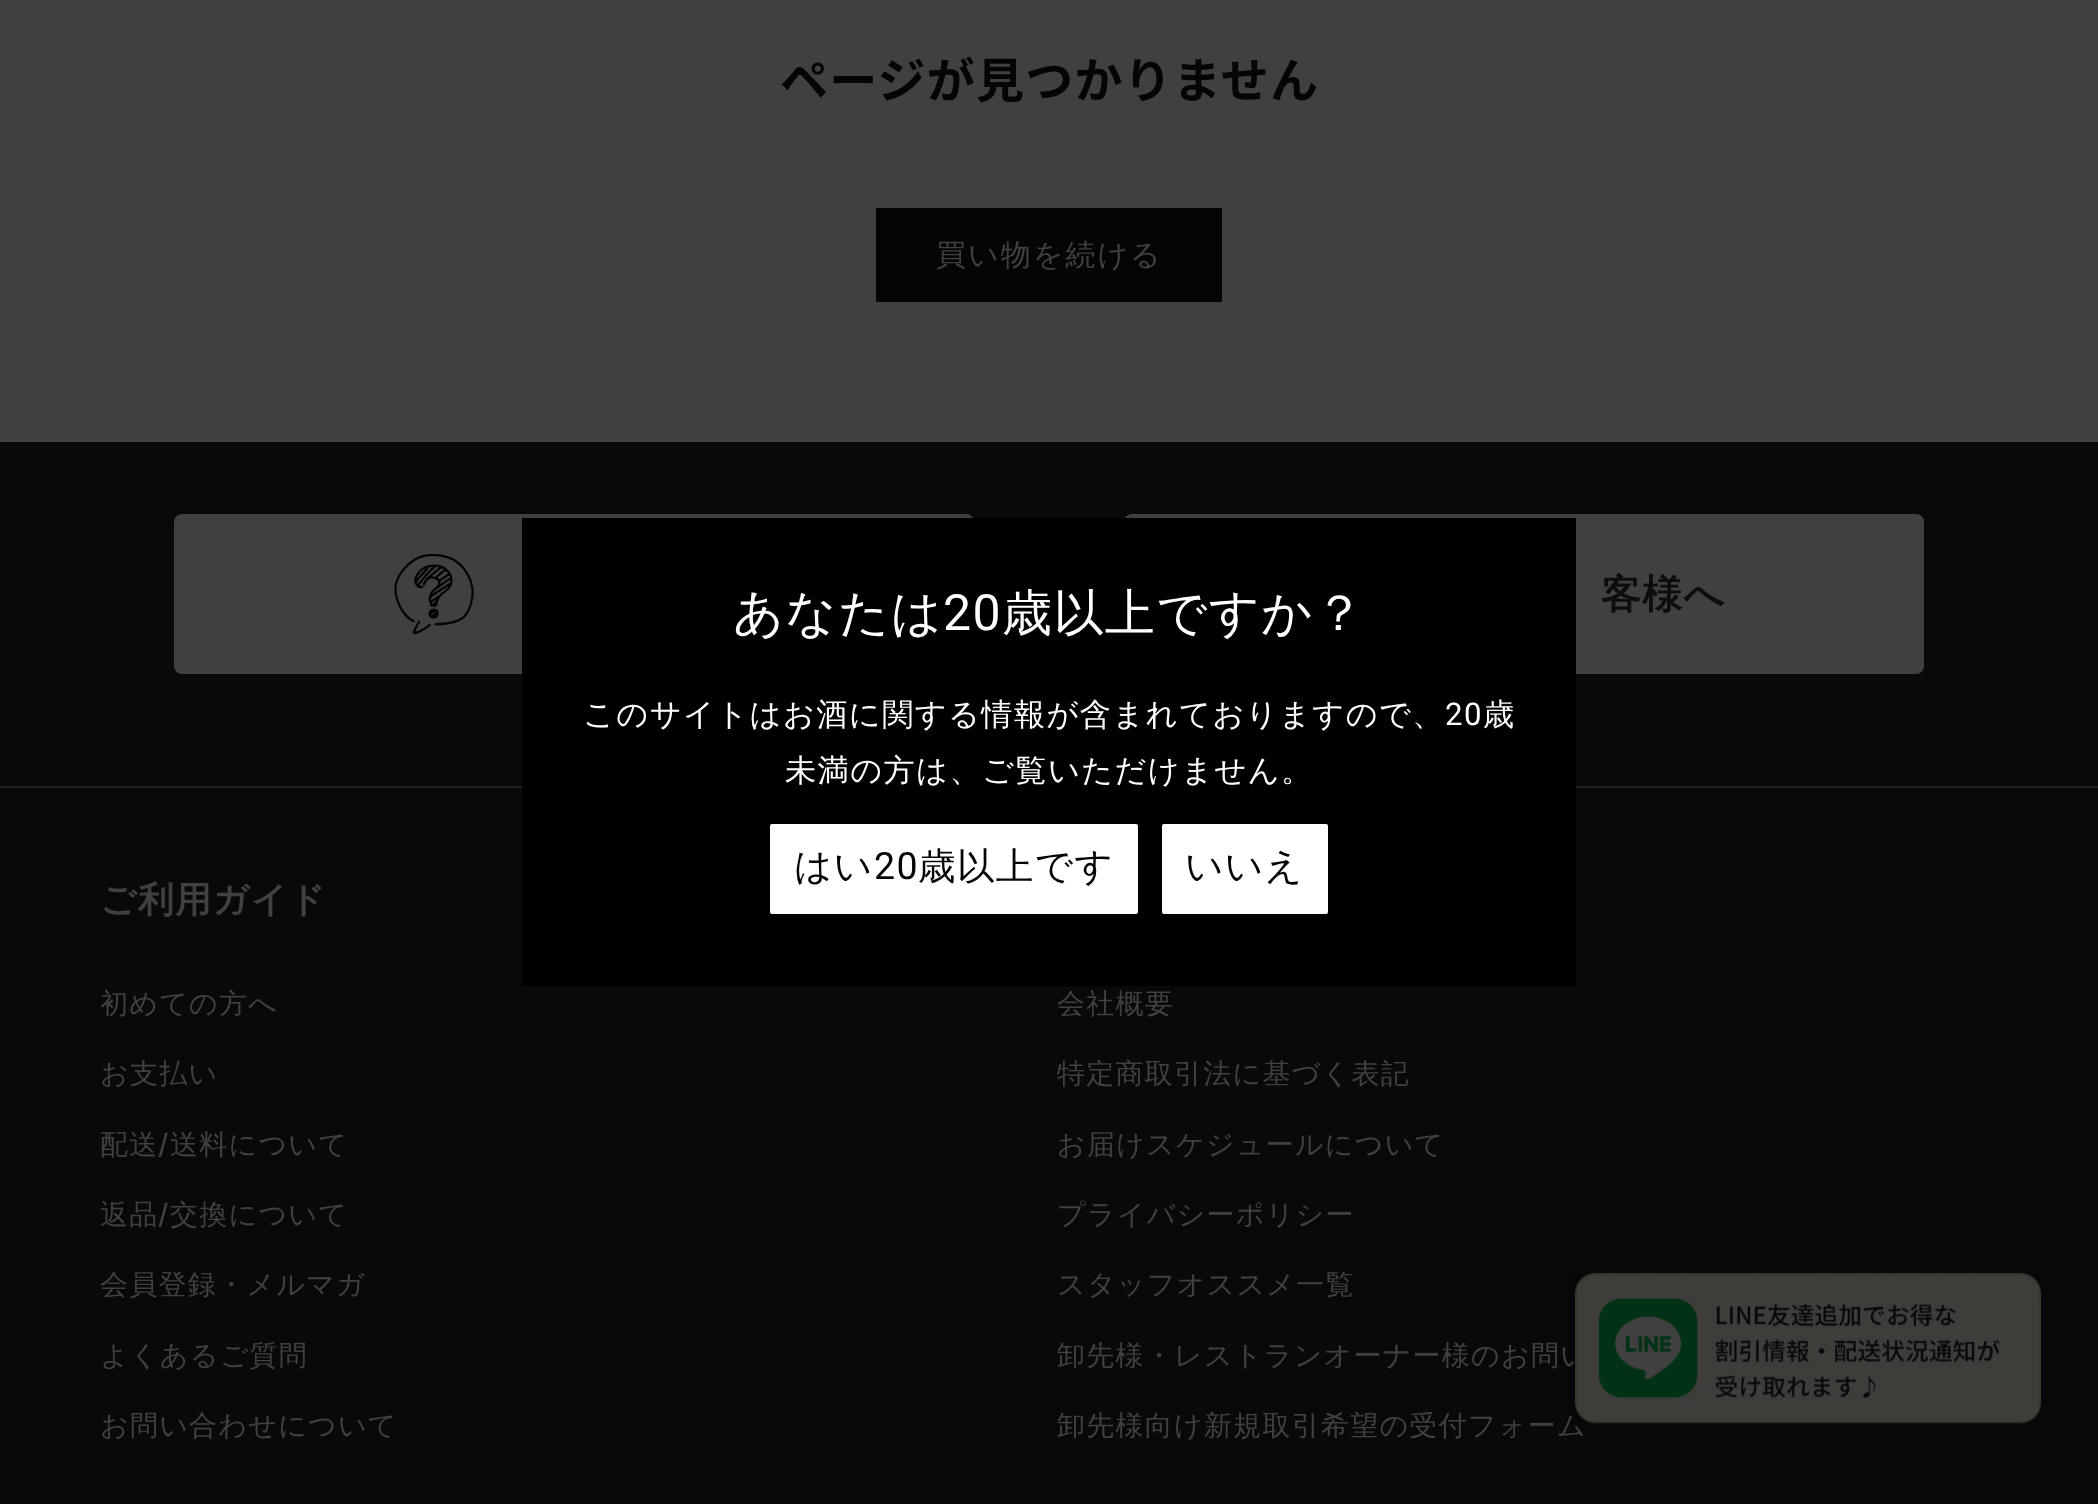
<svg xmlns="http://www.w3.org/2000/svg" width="2098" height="1504">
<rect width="100%" height="100%" fill="#404040"/>
<text x="780" y="98" style="font-family:Noto Sans JP;font-size:48px;font-weight:bold;letter-spacing:1.25px;fill:#050505">ページが見つかりません</text>
<rect x="876" y="208" width="346" height="94" fill="#050505"/>
<text x="936" y="265" style="font-family:WenQuanYi Zen Hei;font-size:30px;font-weight:500;letter-spacing:2px;fill:#404040">買い物を続ける</text>
<rect y="442" width="2098" height="1062" fill="#090909"/>
<rect y="786" width="2098" height="2" fill="#212121"/>
<rect x="174" y="514" width="800" height="160" rx="8" fill="#404040"/>
<image x="394" y="554" width="80" height="80" href="media/1.png"/>
<rect x="1124" y="514" width="800" height="160" rx="8" fill="#404040"/>
<text x="1601" y="608" style="font-family:WenQuanYi Zen Hei;font-size:40px;font-weight:bold;letter-spacing:1.25px;fill:#0d0d0d">客様へ</text>
<text x="100" y="912" style="font-family:WenQuanYi Zen Hei;font-size:36px;font-weight:bold;letter-spacing:1.25px;fill:#404040">ご利用ガイド</text>
<text x="100" y="1013" style="font-family:WenQuanYi Zen Hei;font-size:28px;font-weight:500;letter-spacing:1.25px;fill:#404040">初めての方へ</text>
<text x="100" y="1083" style="font-family:WenQuanYi Zen Hei;font-size:28px;font-weight:500;letter-spacing:1.25px;fill:#404040">お支払い</text>
<text x="100" y="1154" style="font-family:WenQuanYi Zen Hei;font-size:28px;font-weight:500;letter-spacing:1.25px;fill:#404040">配送</text>
<text x="158" y="1154" style="font-family:Inter;font-size:28px;font-weight:500;letter-spacing:1.25px;fill:#404040">/</text>
<text x="170" y="1154" style="font-family:WenQuanYi Zen Hei;font-size:28px;font-weight:500;letter-spacing:1.25px;fill:#404040">送料について</text>
<text x="100" y="1224" style="font-family:WenQuanYi Zen Hei;font-size:28px;font-weight:500;letter-spacing:1.25px;fill:#404040">返品</text>
<text x="158" y="1224" style="font-family:Inter;font-size:28px;font-weight:500;letter-spacing:1.25px;fill:#404040">/</text>
<text x="170" y="1224" style="font-family:WenQuanYi Zen Hei;font-size:28px;font-weight:500;letter-spacing:1.25px;fill:#404040">交換について</text>
<text x="100" y="1294" style="font-family:WenQuanYi Zen Hei;font-size:28px;font-weight:500;letter-spacing:1.25px;fill:#404040">会員登録・メルマガ</text>
<text x="100" y="1365" style="font-family:WenQuanYi Zen Hei;font-size:28px;font-weight:500;letter-spacing:1.25px;fill:#404040">よくあるご質問</text>
<text x="100" y="1435" style="font-family:WenQuanYi Zen Hei;font-size:28px;font-weight:500;letter-spacing:1.25px;fill:#404040">お問い合わせについて</text>
<text x="1057" y="1013" style="font-family:WenQuanYi Zen Hei;font-size:28px;font-weight:500;letter-spacing:1.25px;fill:#404040">会社概要</text>
<text x="1057" y="1083" style="font-family:WenQuanYi Zen Hei;font-size:28px;font-weight:500;letter-spacing:1.25px;fill:#404040">特定商取引法に基づく表記</text>
<text x="1057" y="1154" style="font-family:WenQuanYi Zen Hei;font-size:28px;font-weight:500;letter-spacing:1.25px;fill:#404040">お届けスケジュールについて</text>
<text x="1057" y="1224" style="font-family:WenQuanYi Zen Hei;font-size:28px;font-weight:500;letter-spacing:1.25px;fill:#404040">プライバシーポリシー</text>
<text x="1057" y="1294" style="font-family:WenQuanYi Zen Hei;font-size:28px;font-weight:500;letter-spacing:1.25px;fill:#404040">スタッフオススメ一覧</text>
<text x="1057" y="1365" style="font-family:WenQuanYi Zen Hei;font-size:28px;font-weight:500;letter-spacing:1.25px;fill:#404040">卸先様・レストランオーナー様のお問い</text>
<text x="1057" y="1435" style="font-family:WenQuanYi Zen Hei;font-size:28px;font-weight:500;letter-spacing:1.25px;fill:#404040">卸先様向け新規取引希望の受付フォーム</text>
<rect x="522" y="518" width="1054" height="468" fill="#000"/>
<text x="733" y="630" style="font-family:WenQuanYi Zen Hei;font-size:50px;font-weight:500;letter-spacing:1.4px;fill:#fff">あなたは</text>
<text x="943" y="630" style="font-family:Roboto;font-size:50px;letter-spacing:1.4px;fill:#fff">20</text>
<text x="1002" y="630" style="font-family:WenQuanYi Zen Hei;font-size:50px;font-weight:500;letter-spacing:1.4px;fill:#fff">歳以上ですか？</text>
<text x="583" y="725" style="font-family:WenQuanYi Zen Hei;font-size:31.2px;font-weight:500;letter-spacing:1.4px;fill:#fff">このサイトはお酒に関する情報が含まれておりますので、</text>
<text x="1445" y="725" style="font-family:Roboto;font-size:31.2px;letter-spacing:1.4px;fill:#fff">20</text>
<text x="1483" y="725" style="font-family:WenQuanYi Zen Hei;font-size:31.2px;font-weight:500;letter-spacing:1.4px;fill:#fff">歳</text>
<text x="785" y="781" style="font-family:WenQuanYi Zen Hei;font-size:31.2px;font-weight:500;letter-spacing:1.4px;fill:#fff">未満の方は、ご覧いただけません。</text>
<rect x="770" y="824" width="368" height="90" rx="2" fill="#fff"/>
<text x="794" y="879" style="font-family:WenQuanYi Zen Hei;font-size:37.5px;font-weight:500;letter-spacing:1.4px;fill:#050505">はい</text>
<text x="874" y="879" style="font-family:Roboto;font-size:37.5px;letter-spacing:1.4px;fill:#050505">20</text>
<text x="918" y="879" style="font-family:WenQuanYi Zen Hei;font-size:37.5px;font-weight:500;letter-spacing:1.4px;fill:#050505">歳以上です</text>
<rect x="1162" y="824" width="166" height="90" rx="2" fill="#fff"/>
<text x="1185" y="879" style="font-family:WenQuanYi Zen Hei;font-size:37.5px;font-weight:500;letter-spacing:1.4px;fill:#050505">いいえ</text>
<image x="1567" y="1273" width="474" height="151" href="media/2.png"/>
</svg>
